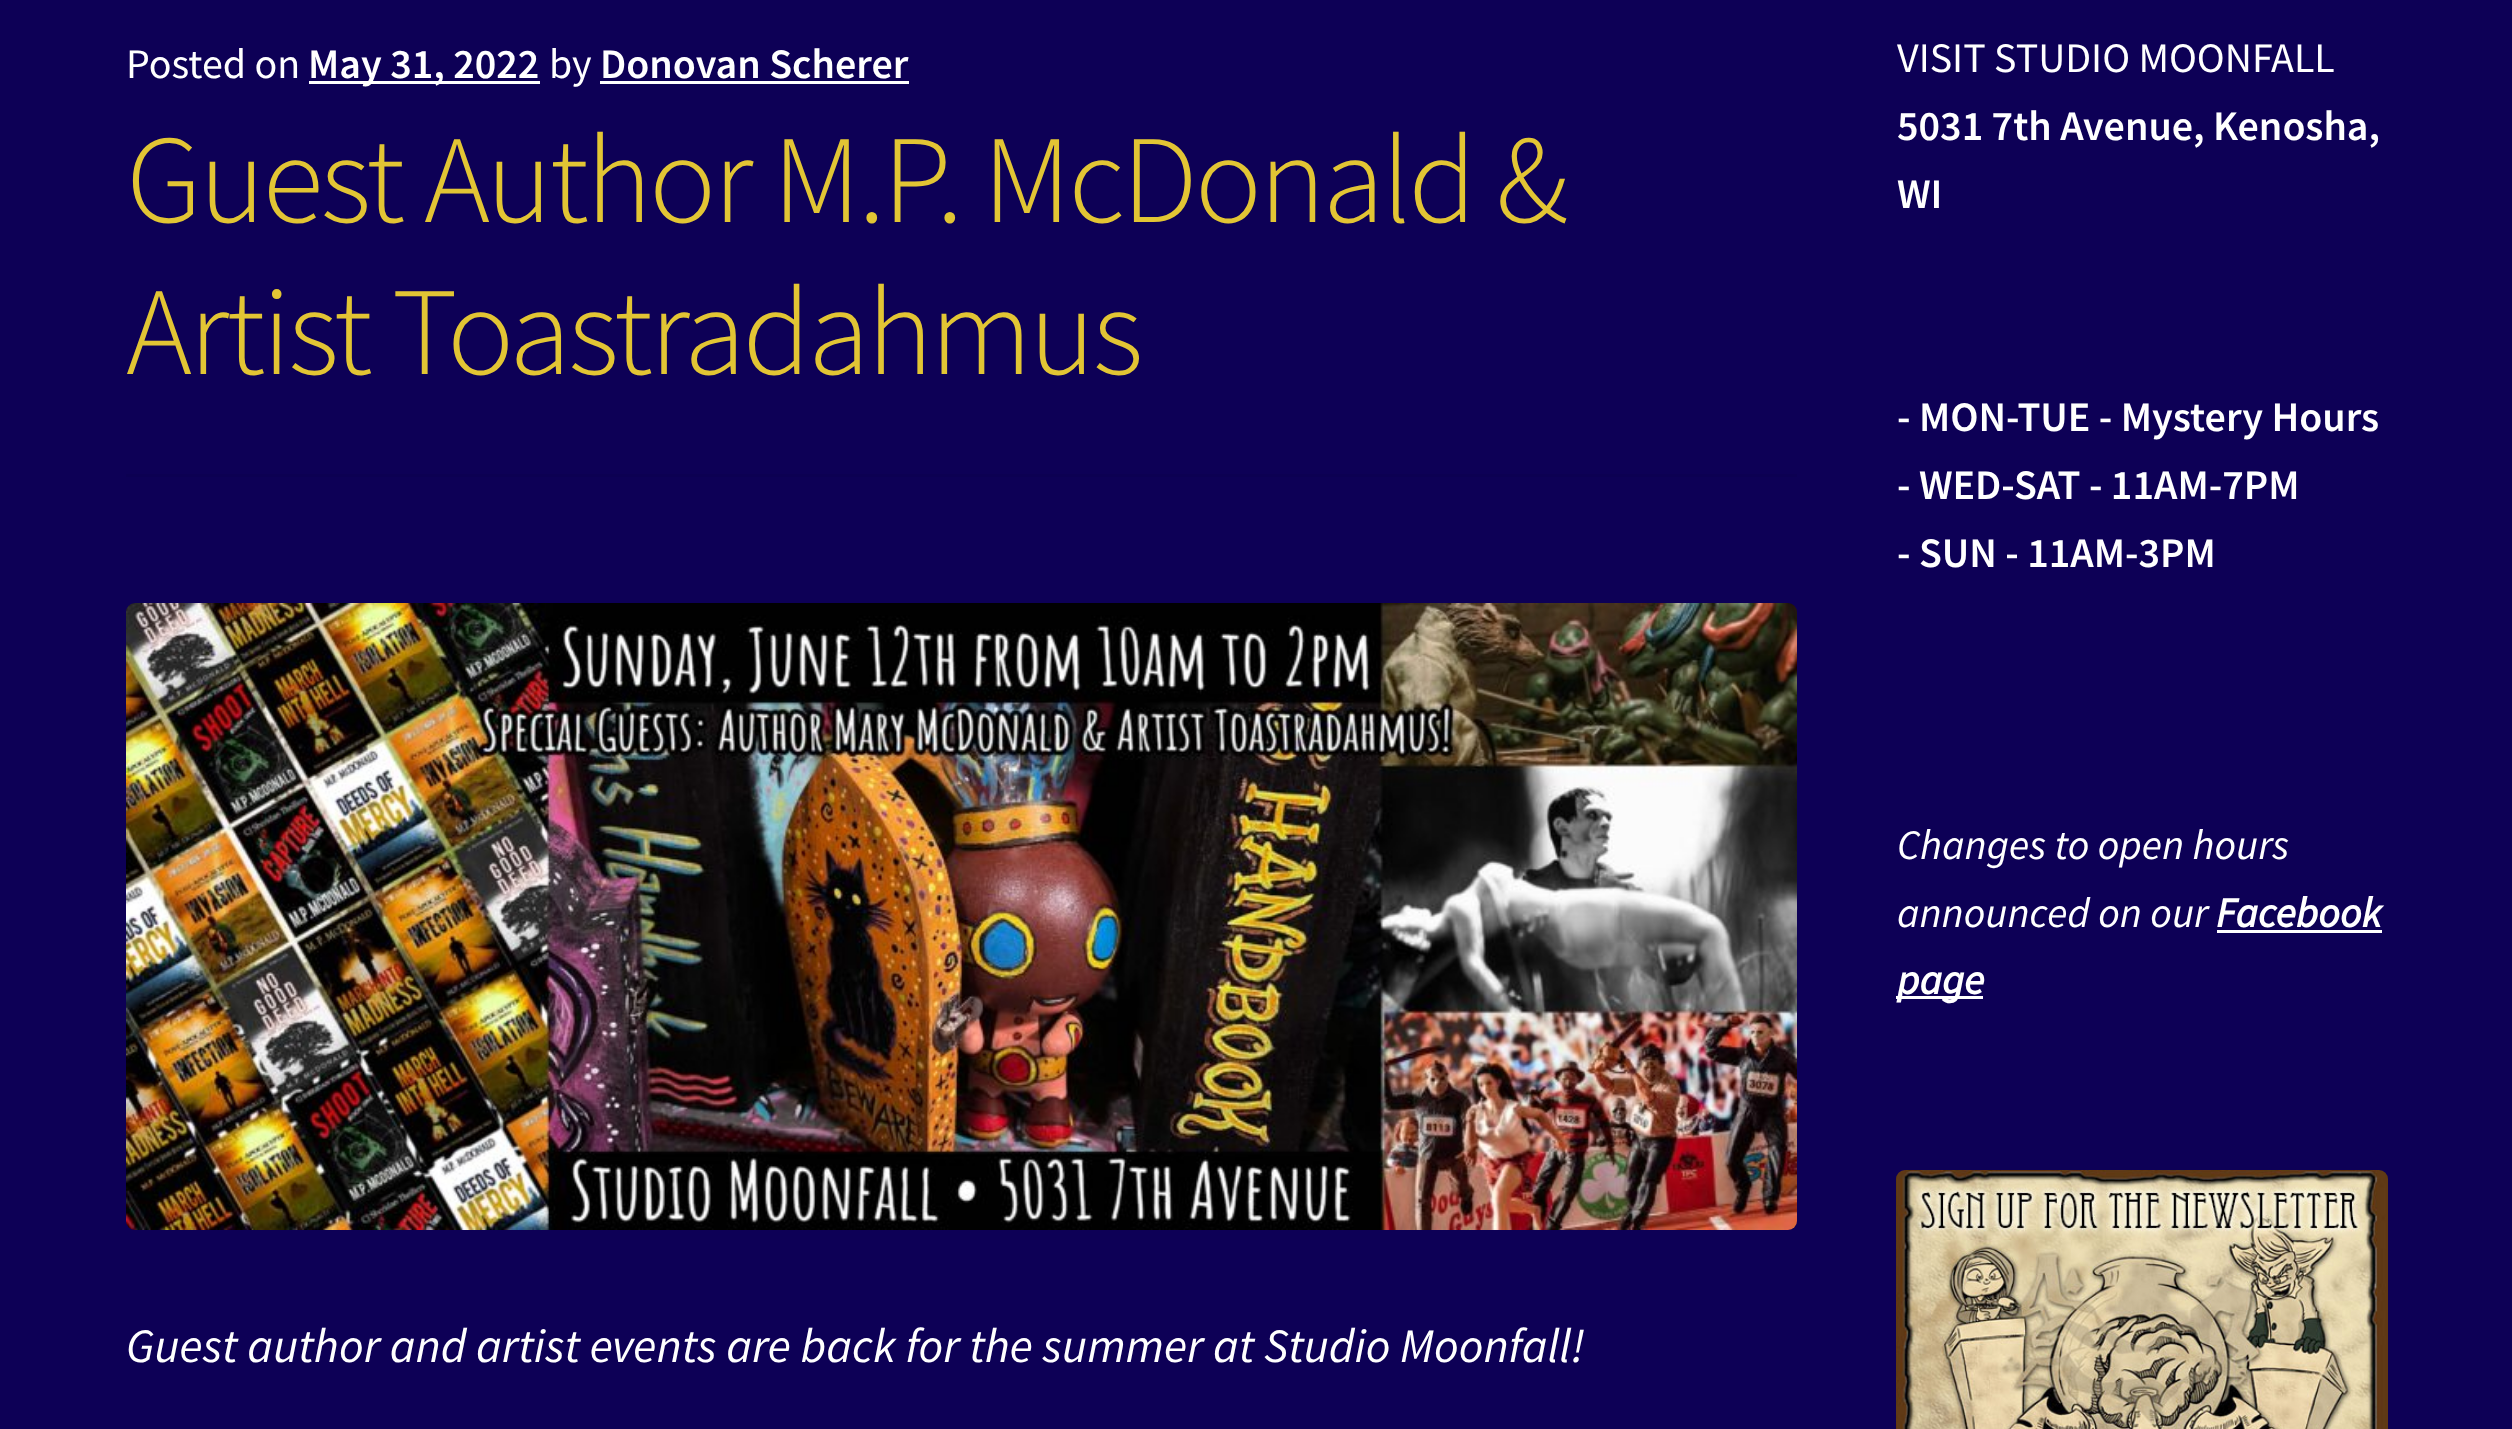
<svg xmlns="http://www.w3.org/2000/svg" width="2512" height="1429">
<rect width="100%" height="100%" fill="#0d0056"/>
<rect x="126" y="474" width="1671" height="3" fill="#0c0052"/>
<text x="126" y="78" style="font-family:Source Sans Pro;font-size:42px;fill:#fff">Posted on</text>
<rect x="309" y="81" width="231" height="3" fill="#fff"/>
<text x="308" y="78" style="font-family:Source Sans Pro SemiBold;font-size:42px;font-weight:600;fill:#fff">May 31, 2022</text>
<text x="549" y="78" style="font-family:Source Sans Pro;font-size:42px;fill:#fff">by</text>
<rect x="600" y="81" width="309" height="3" fill="#fff"/>
<text x="600" y="78" style="font-family:Source Sans Pro SemiBold;font-size:42px;font-weight:600;fill:#fff">Donovan Scherer</text>
<text x="126" y="222" style="font-family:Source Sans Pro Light;font-size:125.7px;font-weight:300;letter-spacing:-3px;fill:#e2c534">Guest Author M.P. McDonald &amp;</text>
<text x="126" y="374" style="font-family:Source Sans Pro Light;font-size:125.7px;font-weight:300;letter-spacing:-3px;fill:#e2c534">Artist Toastradahmus</text>
<image x="126" y="603" width="1671" height="627" href="media/1.png"/>
<text x="126" y="1362" style="font-family:Source Sans Pro;font-size:48px;font-style:italic;fill:#fff">Guest author and artist events are back for the summer at Studio Moonfall!</text>
<text x="1897" y="72" style="font-family:Source Sans Pro;font-size:42px;fill:#fff">VISIT STUDIO MOONFALL</text>
<text x="1897" y="140" style="font-family:Source Sans Pro SemiBold;font-size:42px;font-weight:600;fill:#fff">5031 7th Avenue, Kenosha,</text>
<text x="1897" y="208" style="font-family:Source Sans Pro SemiBold;font-size:42px;font-weight:600;fill:#fff">WI</text>
<text x="1897" y="431" style="font-family:Source Sans Pro SemiBold;font-size:42px;font-weight:600;fill:#fff">- MON-TUE - Mystery Hours</text>
<text x="1897" y="499" style="font-family:Source Sans Pro SemiBold;font-size:42px;font-weight:600;fill:#fff">- WED-SAT - 11AM-7PM</text>
<text x="1897" y="567" style="font-family:Source Sans Pro SemiBold;font-size:42px;font-weight:600;fill:#fff">- SUN - 11AM-3PM</text>
<text x="1897" y="859" style="font-family:Source Sans Pro;font-size:42px;font-style:italic;fill:#fff">Changes to open hours</text>
<text x="1897" y="927" style="font-family:Source Sans Pro;font-size:42px;font-style:italic;fill:#fff">announced on our</text>
<text x="2216" y="927" style="font-family:Source Sans Pro;font-size:42px;font-weight:bold;font-style:italic;fill:#fff">Facebook</text>
<rect x="2217" y="930" width="165" height="3" fill="#fff"/>
<rect x="1896" y="996" width="87" height="3" fill="#fff"/>
<text x="1897" y="994" style="font-family:Source Sans Pro;font-size:42px;font-weight:bold;font-style:italic;fill:#fff">page</text>
<image x="1896" y="1170" width="492" height="259" href="media/2.png"/>
</svg>
